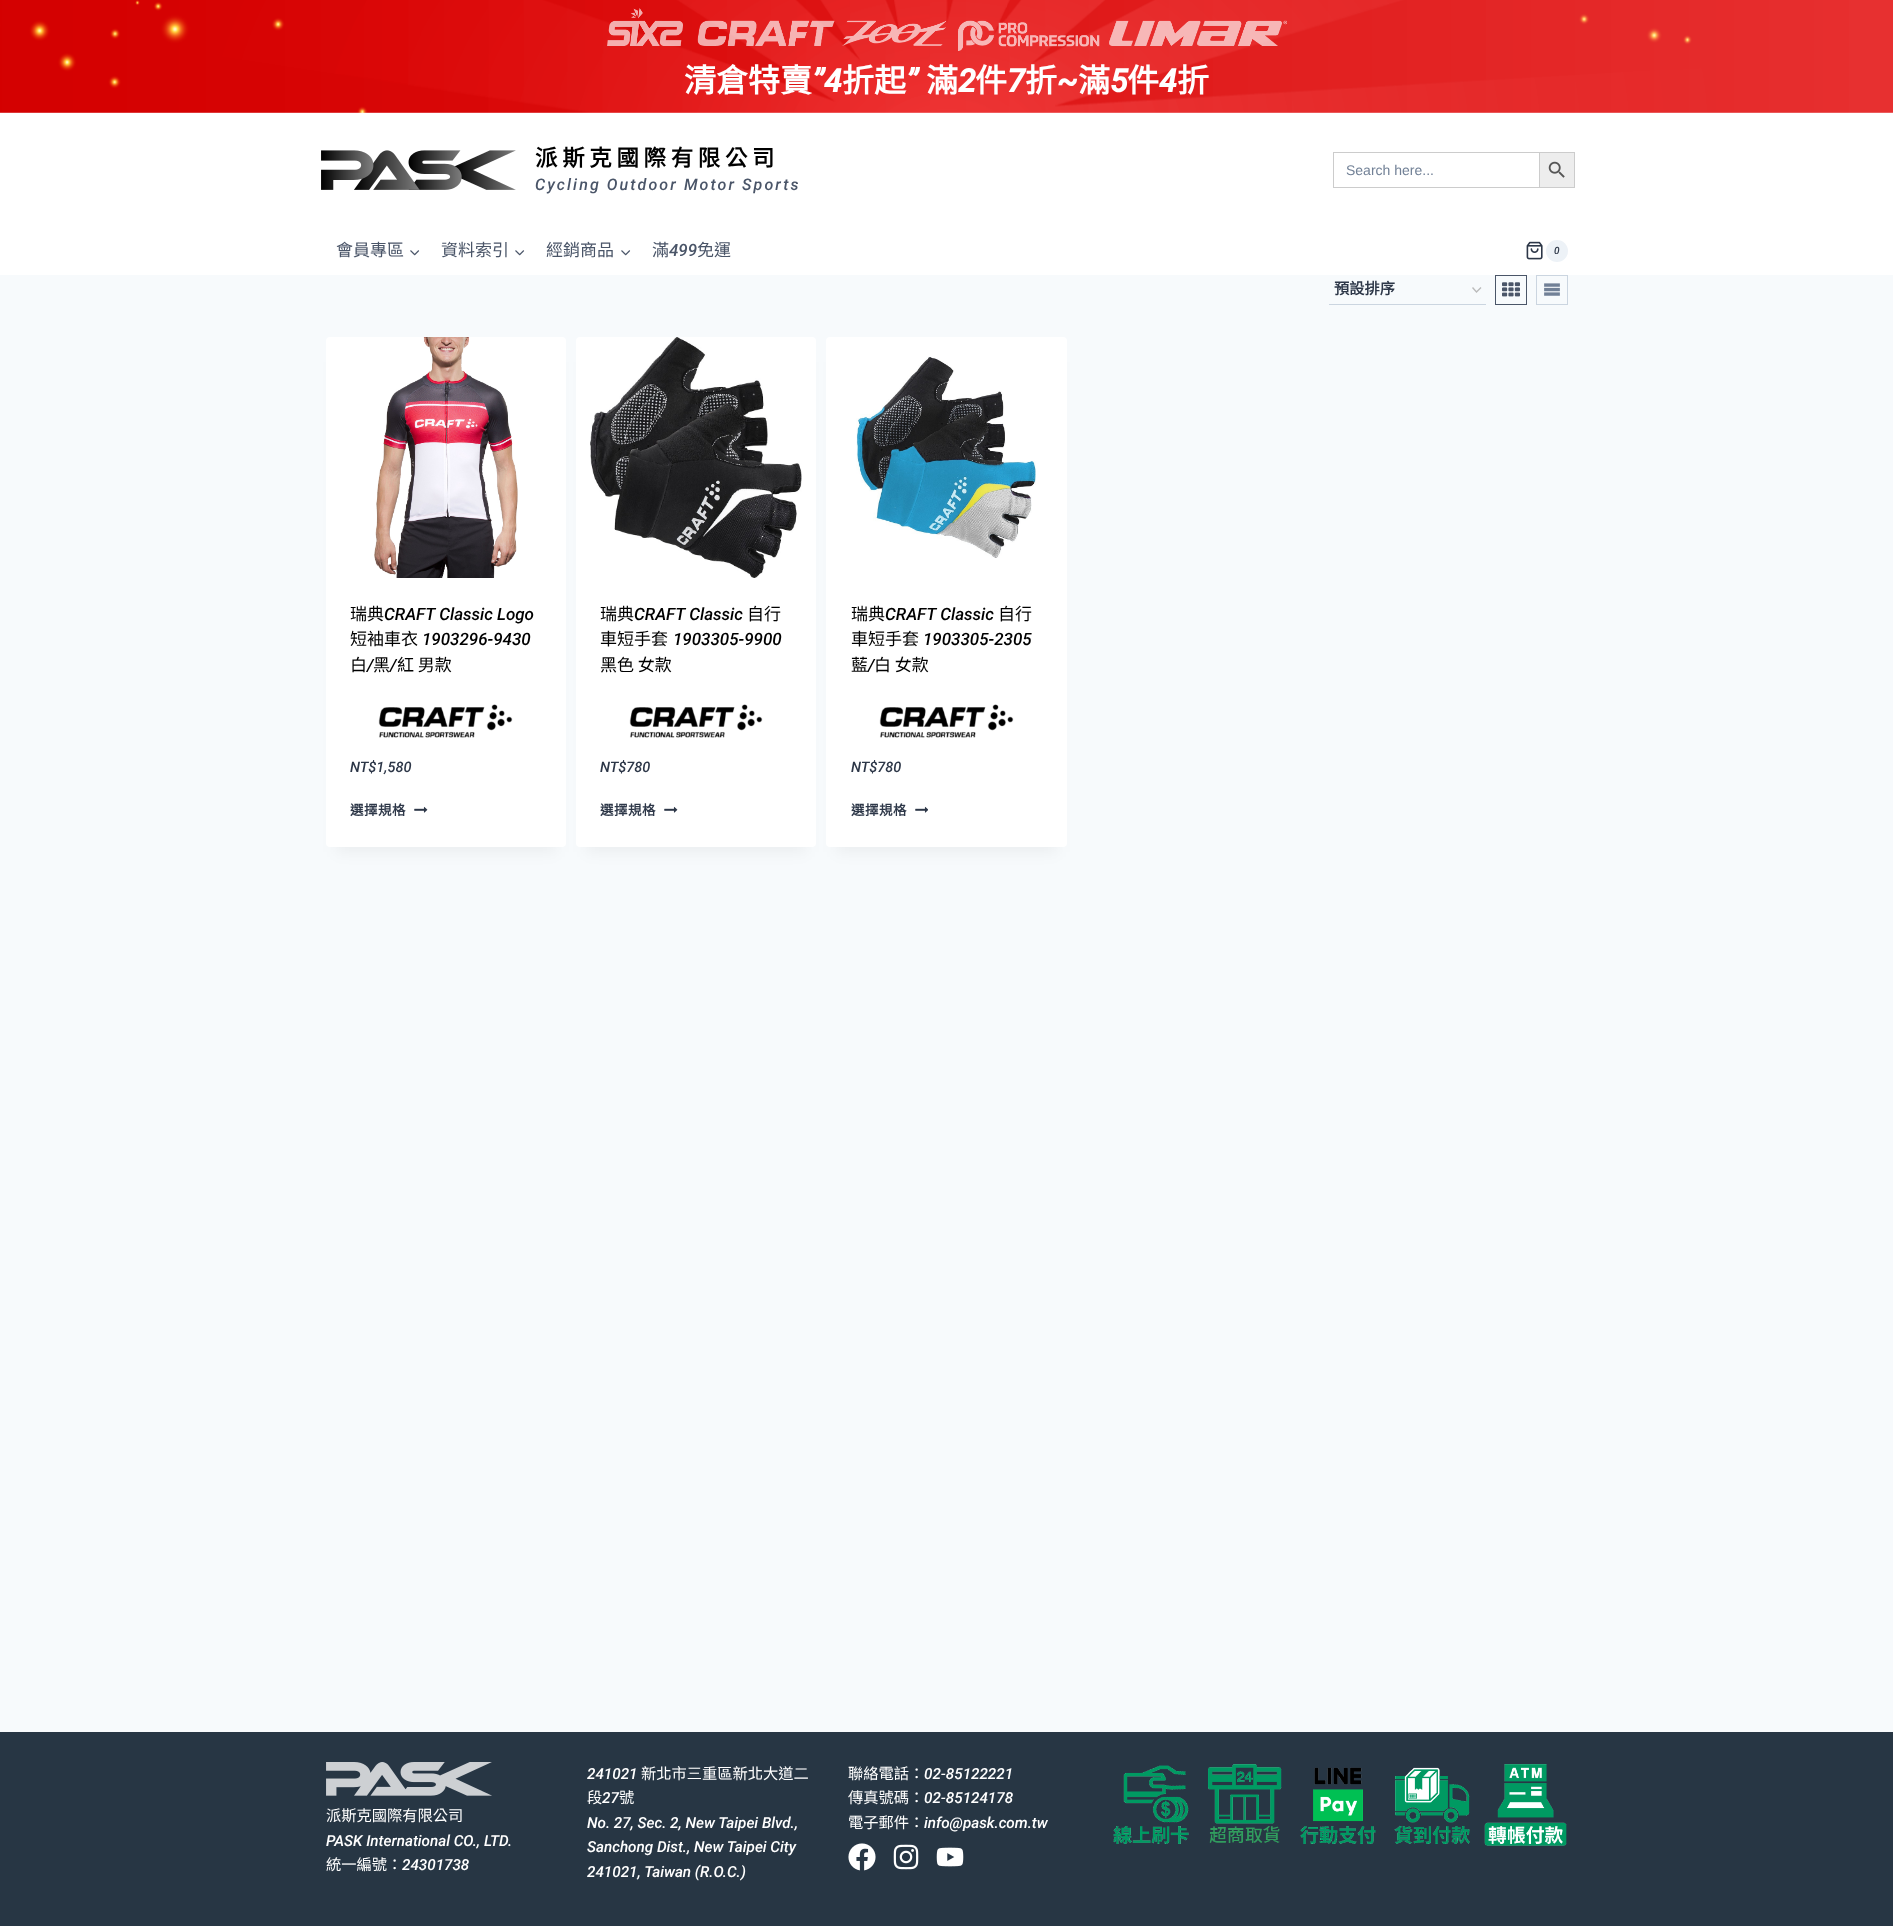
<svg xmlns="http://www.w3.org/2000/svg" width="1893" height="1926">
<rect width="100%" height="100%" fill="#f7fafc"/>
<image x="0" y="0" width="1893" height="113" href="media/1.png"/>
<image x="607" y="8" width="680" height="43" href="media/2.png"/>
<text x="684" y="92" style="font-family:Noto Sans CJK TC;font-size:32px;font-weight:bold;fill:#fff">清倉特賣</text>
<text x="812" y="92" style="font-family:Roboto;font-size:32px;font-weight:bold;font-style:italic;fill:#fff">”4</text>
<text x="842" y="92" style="font-family:Noto Sans CJK TC;font-size:32px;font-weight:bold;fill:#fff">折起</text>
<text x="906" y="92" style="font-family:Roboto;font-size:32px;font-weight:bold;font-style:italic;fill:#fff">”</text>
<text x="926" y="92" style="font-family:Noto Sans CJK TC;font-size:32px;font-weight:bold;fill:#fff">滿</text>
<text x="958" y="92" style="font-family:Roboto;font-size:32px;font-weight:bold;font-style:italic;fill:#fff">2</text>
<text x="975" y="92" style="font-family:Noto Sans CJK TC;font-size:32px;font-weight:bold;fill:#fff">件</text>
<text x="1007" y="92" style="font-family:Roboto;font-size:32px;font-weight:bold;font-style:italic;fill:#fff">7</text>
<text x="1025" y="92" style="font-family:Noto Sans CJK TC;font-size:32px;font-weight:bold;fill:#fff">折</text>
<text x="1057" y="92" style="font-family:Roboto;font-size:32px;font-weight:bold;font-style:italic;fill:#fff">~</text>
<text x="1078" y="92" style="font-family:Noto Sans CJK TC;font-size:32px;font-weight:bold;fill:#fff">滿</text>
<text x="1110" y="92" style="font-family:Roboto;font-size:32px;font-weight:bold;font-style:italic;fill:#fff">5</text>
<text x="1127" y="92" style="font-family:Noto Sans CJK TC;font-size:32px;font-weight:bold;fill:#fff">件</text>
<text x="1159" y="92" style="font-family:Roboto;font-size:32px;font-weight:bold;font-style:italic;fill:#fff">4</text>
<text x="1177" y="92" style="font-family:Noto Sans CJK TC;font-size:32px;font-weight:bold;fill:#fff">折</text>
<rect y="113" width="1893" height="162" fill="#fff"/>
<image x="321" y="150" width="195" height="40" href="media/3.png"/>
<text x="535" y="166" style="font-family:Noto Sans CJK TC;font-size:22.4px;font-weight:bold;letter-spacing:4.75px;fill:#000">派斯克國際有限公司</text>
<text x="535" y="190" style="font-family:Roboto;font-size:16px;font-weight:500;font-style:italic;letter-spacing:2.1px;fill:#4a5568">Cycling Outdoor Motor Sports</text>
<rect x="1333" y="152" width="206" height="1" fill="#ccc"/>
<rect x="1333" y="187" width="206" height="1" fill="#ccc"/>
<rect x="1333" y="152" width="1" height="36" fill="#ccc"/>
<text x="1346" y="175" style="font-family:Liberation Sans;font-size:14px;fill:#718096">Search here...</text>
<rect x="1539.5" y="152.5" width="35" height="35" fill="#ededed" stroke="#ccc"/>
<image x="1548" y="161" width="17" height="17" href="media/4.png"/>
<text x="336" y="256" style="font-family:Noto Sans CJK TC;font-size:17px;fill:#4a5568">會員專區</text>
<image x="410" y="250" width="10" height="6" href="media/5.png"/>
<text x="441" y="256" style="font-family:Noto Sans CJK TC;font-size:17px;fill:#4a5568">資料索引</text>
<image x="515" y="250" width="10" height="6" href="media/5.png"/>
<text x="546" y="256" style="font-family:Noto Sans CJK TC;font-size:17px;fill:#4a5568">經銷商品</text>
<image x="621" y="250" width="10" height="6" href="media/5.png"/>
<text x="652" y="256" style="font-family:Noto Sans CJK TC;font-size:17px;fill:#4a5568">滿</text>
<text x="669" y="256" style="font-family:Roboto;font-size:17px;font-weight:500;font-style:italic;fill:#4a5568">499</text>
<text x="697" y="256" style="font-family:Noto Sans CJK TC;font-size:17px;fill:#4a5568">免運</text>
<image x="1526" y="241" width="17" height="19" href="media/6.png"/>
<circle cx="1557" cy="251" r="11" fill="#edf2f7"/>
<text x="1554" y="254" style="font-family:Roboto;font-size:10px;font-weight:500;font-style:italic;fill:#2d3748">0</text>
<path d="M1472.5 287.5l4 4.5l4.5-4.5" fill="none" stroke="#bbb" stroke-width="1.4"/>
<rect x="1329" y="304" width="157" height="1" fill="#cbd5e0"/>
<text x="1334" y="294" style="font-family:Noto Sans CJK TC;font-size:15.25px;font-weight:bold;fill:#2d3748">預設排序</text>
<rect x="1495.5" y="275.5" width="31" height="29" fill="none" stroke="#4a5568"/>
<image x="1502" y="282" width="18" height="15" href="media/7.png"/>
<rect x="1536.5" y="275.5" width="31" height="29" fill="none" stroke="#cbd5e0"/>
<image x="1544" y="283" width="16" height="13" href="media/8.png"/>
<rect x="336" y="362" width="220" height="490" fill="#0000000d" filter="blur(7.5px)"/>
<rect x="326" y="337" width="240" height="510" rx="4" fill="#fff"/>
<image x="374" y="337" width="144" height="241" href="media/9.png"/>
<text x="350" y="620" style="font-family:Noto Sans CJK TC;font-size:17px;fill:#000">瑞典</text>
<text x="384" y="620" style="font-family:Roboto;font-size:17px;font-weight:500;font-style:italic;fill:#000">CRAFT Classic Logo</text>
<text x="350" y="645" style="font-family:Noto Sans CJK TC;font-size:17px;fill:#000">短袖車衣</text>
<text x="422" y="645" style="font-family:Roboto;font-size:17px;font-weight:500;font-style:italic;fill:#000">1903296-9430</text>
<text x="350" y="671" style="font-family:Noto Sans CJK TC;font-size:17px;fill:#000">白</text>
<text x="367" y="671" style="font-family:Roboto;font-size:17px;font-weight:500;font-style:italic;fill:#000">/</text>
<text x="373" y="671" style="font-family:Noto Sans CJK TC;font-size:17px;fill:#000">黑</text>
<text x="390" y="671" style="font-family:Roboto;font-size:17px;font-weight:500;font-style:italic;fill:#000">/</text>
<text x="397" y="671" style="font-family:Noto Sans CJK TC;font-size:17px;fill:#000">紅 男款</text>
<image x="378" y="704" width="135" height="34" href="media/10.png"/>
<text x="350" y="772" style="font-family:Roboto;font-size:14.5px;font-weight:500;font-style:italic;fill:#2d3748">NT$1,580</text>
<text x="350" y="815" style="font-family:Noto Sans CJK TC;font-size:13.5px;font-weight:bold;letter-spacing:0.5px;fill:#2d3748">選擇規格</text>
<image x="414" y="806" width="14" height="7" href="media/11.png"/>
<rect x="586" y="362" width="220" height="490" fill="#0000000d" filter="blur(7.5px)"/>
<rect x="576" y="337" width="240" height="510" rx="4" fill="#fff"/>
<image x="590" y="337" width="212" height="241" href="media/12.png"/>
<text x="600" y="620" style="font-family:Noto Sans CJK TC;font-size:17px;fill:#000">瑞典</text>
<text x="634" y="620" style="font-family:Roboto;font-size:17px;font-weight:500;font-style:italic;fill:#000">CRAFT Classic</text>
<text x="747" y="620" style="font-family:Noto Sans CJK TC;font-size:17px;fill:#000">自行</text>
<text x="600" y="645" style="font-family:Noto Sans CJK TC;font-size:17px;fill:#000">車短手套</text>
<text x="673" y="645" style="font-family:Roboto;font-size:17px;font-weight:500;font-style:italic;fill:#000">1903305-9900</text>
<text x="600" y="671" style="font-family:Noto Sans CJK TC;font-size:17px;fill:#000">黑色 女款</text>
<image x="629" y="704" width="134" height="34" href="media/13.png"/>
<text x="600" y="772" style="font-family:Roboto;font-size:14.5px;font-weight:500;font-style:italic;fill:#2d3748">NT$780</text>
<text x="600" y="815" style="font-family:Noto Sans CJK TC;font-size:13.5px;font-weight:bold;letter-spacing:0.5px;fill:#2d3748">選擇規格</text>
<image x="664" y="806" width="14" height="7" href="media/11.png"/>
<rect x="836" y="362" width="221" height="490" fill="#0000000d" filter="blur(7.5px)"/>
<rect x="826" y="337" width="241" height="510" rx="4" fill="#fff"/>
<image x="856" y="356" width="180" height="202" href="media/14.png"/>
<text x="851" y="620" style="font-family:Noto Sans CJK TC;font-size:17px;fill:#000">瑞典</text>
<text x="885" y="620" style="font-family:Roboto;font-size:17px;font-weight:500;font-style:italic;fill:#000">CRAFT Classic</text>
<text x="998" y="620" style="font-family:Noto Sans CJK TC;font-size:17px;fill:#000">自行</text>
<text x="851" y="645" style="font-family:Noto Sans CJK TC;font-size:17px;fill:#000">車短手套</text>
<text x="923" y="645" style="font-family:Roboto;font-size:17px;font-weight:500;font-style:italic;fill:#000">1903305-2305</text>
<text x="851" y="671" style="font-family:Noto Sans CJK TC;font-size:17px;fill:#000">藍</text>
<text x="868" y="671" style="font-family:Roboto;font-size:17px;font-weight:500;font-style:italic;fill:#000">/</text>
<text x="874" y="671" style="font-family:Noto Sans CJK TC;font-size:17px;fill:#000">白 女款</text>
<image x="879" y="704" width="135" height="34" href="media/10.png"/>
<text x="851" y="772" style="font-family:Roboto;font-size:14.5px;font-weight:500;font-style:italic;fill:#2d3748">NT$780</text>
<text x="851" y="815" style="font-family:Noto Sans CJK TC;font-size:13.5px;font-weight:bold;letter-spacing:0.5px;fill:#2d3748">選擇規格</text>
<image x="915" y="806" width="13" height="7" href="media/15.png"/>
<rect y="1732" width="1893" height="194" fill="#273644"/>
<text x="587" y="1779" style="font-family:Roboto;font-size:15.25px;font-weight:500;font-style:italic;fill:#fff">241021</text>
<text x="641" y="1779" style="font-family:Noto Sans CJK TC;font-size:15.25px;fill:#fff">新北市三重區新北大道二</text>
<text x="587" y="1803" style="font-family:Noto Sans CJK TC;font-size:15.25px;fill:#fff">段</text>
<text x="602" y="1803" style="font-family:Roboto;font-size:15.25px;font-weight:500;font-style:italic;fill:#fff">27</text>
<text x="619" y="1803" style="font-family:Noto Sans CJK TC;font-size:15.25px;fill:#fff">號</text>
<text x="587" y="1828" style="font-family:Roboto;font-size:15.25px;font-weight:500;font-style:italic;fill:#fff">No. 27, Sec. 2, New Taipei Blvd.,</text>
<text x="587" y="1852" style="font-family:Roboto;font-size:15.25px;font-weight:500;font-style:italic;fill:#fff">Sanchong Dist., New Taipei City</text>
<text x="587" y="1877" style="font-family:Roboto;font-size:15.25px;font-weight:500;font-style:italic;fill:#fff">241021, Taiwan (R.O.C.)</text>
<text x="848" y="1779" style="font-family:Noto Sans CJK TC;font-size:15.25px;fill:#fff">聯絡電話：</text>
<text x="924" y="1779" style="font-family:Roboto;font-size:15.25px;font-weight:500;font-style:italic;fill:#fff">02-85122221</text>
<text x="848" y="1803" style="font-family:Noto Sans CJK TC;font-size:15.25px;fill:#fff">傳真號碼：</text>
<text x="924" y="1803" style="font-family:Roboto;font-size:15.25px;font-weight:500;font-style:italic;fill:#fff">02-85124178</text>
<text x="848" y="1828" style="font-family:Noto Sans CJK TC;font-size:15.25px;fill:#fff">電子郵件：</text>
<text x="924" y="1828" style="font-family:Roboto;font-size:15.25px;font-weight:500;font-style:italic;fill:#fff">info@pask.com.tw</text>
<image x="848" y="1843" width="28" height="28" href="media/16.png"/>
<image x="893" y="1844" width="26" height="26" href="media/17.png"/>
<image x="936" y="1847" width="28" height="20" href="media/18.png"/>
<image x="1113" y="1765" width="76" height="79" href="media/19.png"/>
<image x="1208" y="1764" width="74" height="79" href="media/20.png"/>
<image x="1300" y="1767" width="76" height="77" href="media/21.png"/>
<image x="1394" y="1767" width="76" height="77" href="media/22.png"/>
<image x="1484" y="1764" width="83" height="82" href="media/23.png"/>
<image x="326" y="1762" width="166" height="34" href="media/24.png"/>
<text x="326" y="1821" style="font-family:Noto Sans CJK TC;font-size:15.25px;fill:#fff">派斯克國際有限公司</text>
<text x="326" y="1846" style="font-family:Roboto;font-size:15.25px;font-weight:500;font-style:italic;fill:#fff">PASK International CO., LTD.</text>
<text x="326" y="1870" style="font-family:Noto Sans CJK TC;font-size:15.25px;fill:#fff">統一編號：</text>
<text x="402" y="1870" style="font-family:Roboto;font-size:15.25px;font-weight:500;font-style:italic;fill:#fff">24301738</text>
</svg>
